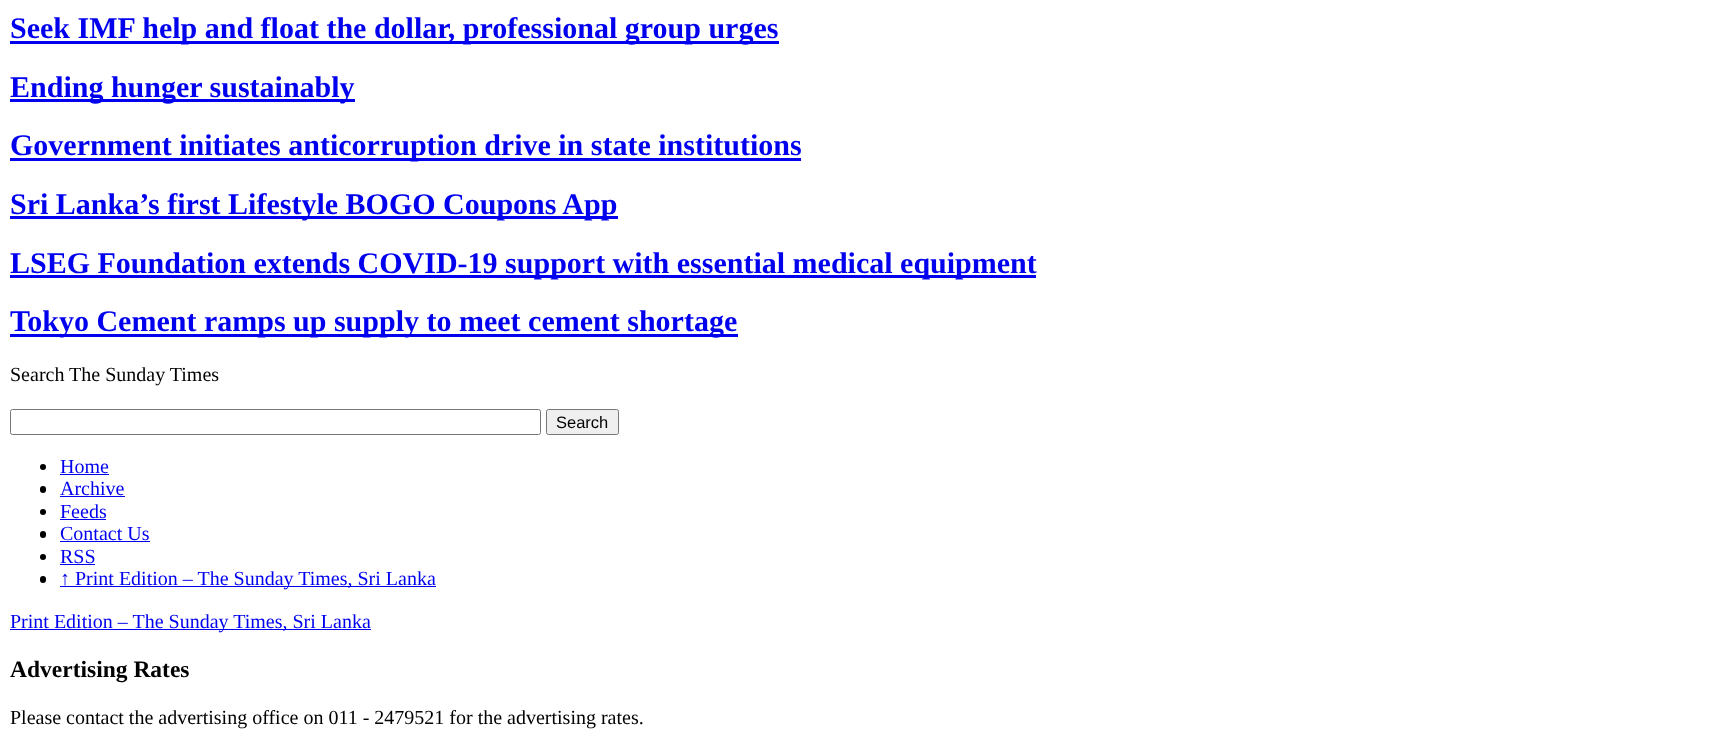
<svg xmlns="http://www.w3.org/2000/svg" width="1717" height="738">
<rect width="100%" height="100%" fill="#fff"/>
<rect x="10" y="41" width="769" height="3" fill="#00e"/>
<text x="10" y="38" style="font-family:Liberation Serif;font-size:30px;font-weight:bold;fill:#00e">Seek IMF help and float the dollar, professional group urges</text>
<rect x="10" y="99" width="345" height="3" fill="#00e"/>
<text x="10" y="97" style="font-family:Liberation Serif;font-size:30px;font-weight:bold;fill:#00e">Ending hunger sustainably</text>
<rect x="10" y="158" width="791" height="3" fill="#00e"/>
<text x="10" y="155" style="font-family:Liberation Serif;font-size:30px;font-weight:bold;fill:#00e">Government initiates anticorruption drive in state institutions</text>
<rect x="10" y="216" width="608" height="3" fill="#00e"/>
<text x="10" y="214" style="font-family:Liberation Serif;font-size:30px;font-weight:bold;fill:#00e">Sri Lanka’s first Lifestyle BOGO Coupons App</text>
<rect x="10" y="275" width="1026" height="3" fill="#00e"/>
<text x="10" y="273" style="font-family:Liberation Serif;font-size:30px;font-weight:bold;fill:#00e">LSEG Foundation extends COVID-19 support with essential medical equipment</text>
<rect x="10" y="334" width="728" height="3" fill="#00e"/>
<text x="10" y="331" style="font-family:Liberation Serif;font-size:30px;font-weight:bold;fill:#00e">Tokyo Cement ramps up supply to meet cement shortage</text>
<text x="10" y="381" style="font-family:Liberation Serif;font-size:20px;fill:#000">Search The Sunday Times</text>
<rect x="10.5" y="409.5" width="530" height="25" rx="2" fill="none" stroke="#767676"/>
<rect x="546.5" y="409.5" width="72" height="25" rx="2" fill="#efefef" stroke="#767676"/>
<text x="556" y="428" style="font-family:Liberation Sans;font-size:16.5px;fill:#000">Search</text>
<circle cx="43" cy="467" r="3" fill="#000"/>
<text x="60" y="473" style="font-family:Liberation Serif;font-size:20px;fill:#00e">Home</text>
<rect x="60" y="474" width="49" height="1" fill="#00e"/>
<rect x="40" y="486" width="6" height="7" rx="3" fill="#000"/>
<text x="60" y="495" style="font-family:Liberation Serif;font-size:20px;fill:#00e">Archive</text>
<rect x="60" y="496" width="65" height="1" fill="#00e"/>
<circle cx="43" cy="512" r="3" fill="#000"/>
<text x="60" y="518" style="font-family:Liberation Serif;font-size:20px;fill:#00e">Feeds</text>
<rect x="60" y="519" width="46" height="1" fill="#00e"/>
<rect x="40" y="531" width="6" height="7" rx="3" fill="#000"/>
<text x="60" y="540" style="font-family:Liberation Serif;font-size:20px;fill:#00e">Contact Us</text>
<rect x="60" y="541" width="90" height="1" fill="#00e"/>
<circle cx="43" cy="557" r="3" fill="#000"/>
<text x="60" y="563" style="font-family:Liberation Serif;font-size:20px;fill:#00e">RSS</text>
<rect x="60" y="564" width="35" height="1" fill="#00e"/>
<rect x="40" y="576" width="6" height="7" rx="3" fill="#000"/>
<text x="60" y="585" style="font-family:Liberation Serif;font-size:20px;font-weight:bold;fill:#00e">↑</text>
<rect x="60" y="586" width="376" height="1" fill="#00e"/>
<text x="75" y="585" style="font-family:Liberation Serif;font-size:20px;fill:#00e">Print Edition – The Sunday Times, Sri Lanka</text>
<rect x="10" y="629" width="361" height="1" fill="#00e"/>
<text x="10" y="628" style="font-family:Liberation Serif;font-size:20px;fill:#00e">Print Edition – The Sunday Times, Sri Lanka</text>
<text x="10" y="677" style="font-family:Liberation Serif;font-size:23.5px;font-weight:bold;fill:#000">Advertising Rates</text>
<text x="10" y="724" style="font-family:Liberation Serif;font-size:20px;fill:#000">Please contact the advertising office on 011 - 2479521 for the advertising rates.</text>
</svg>
